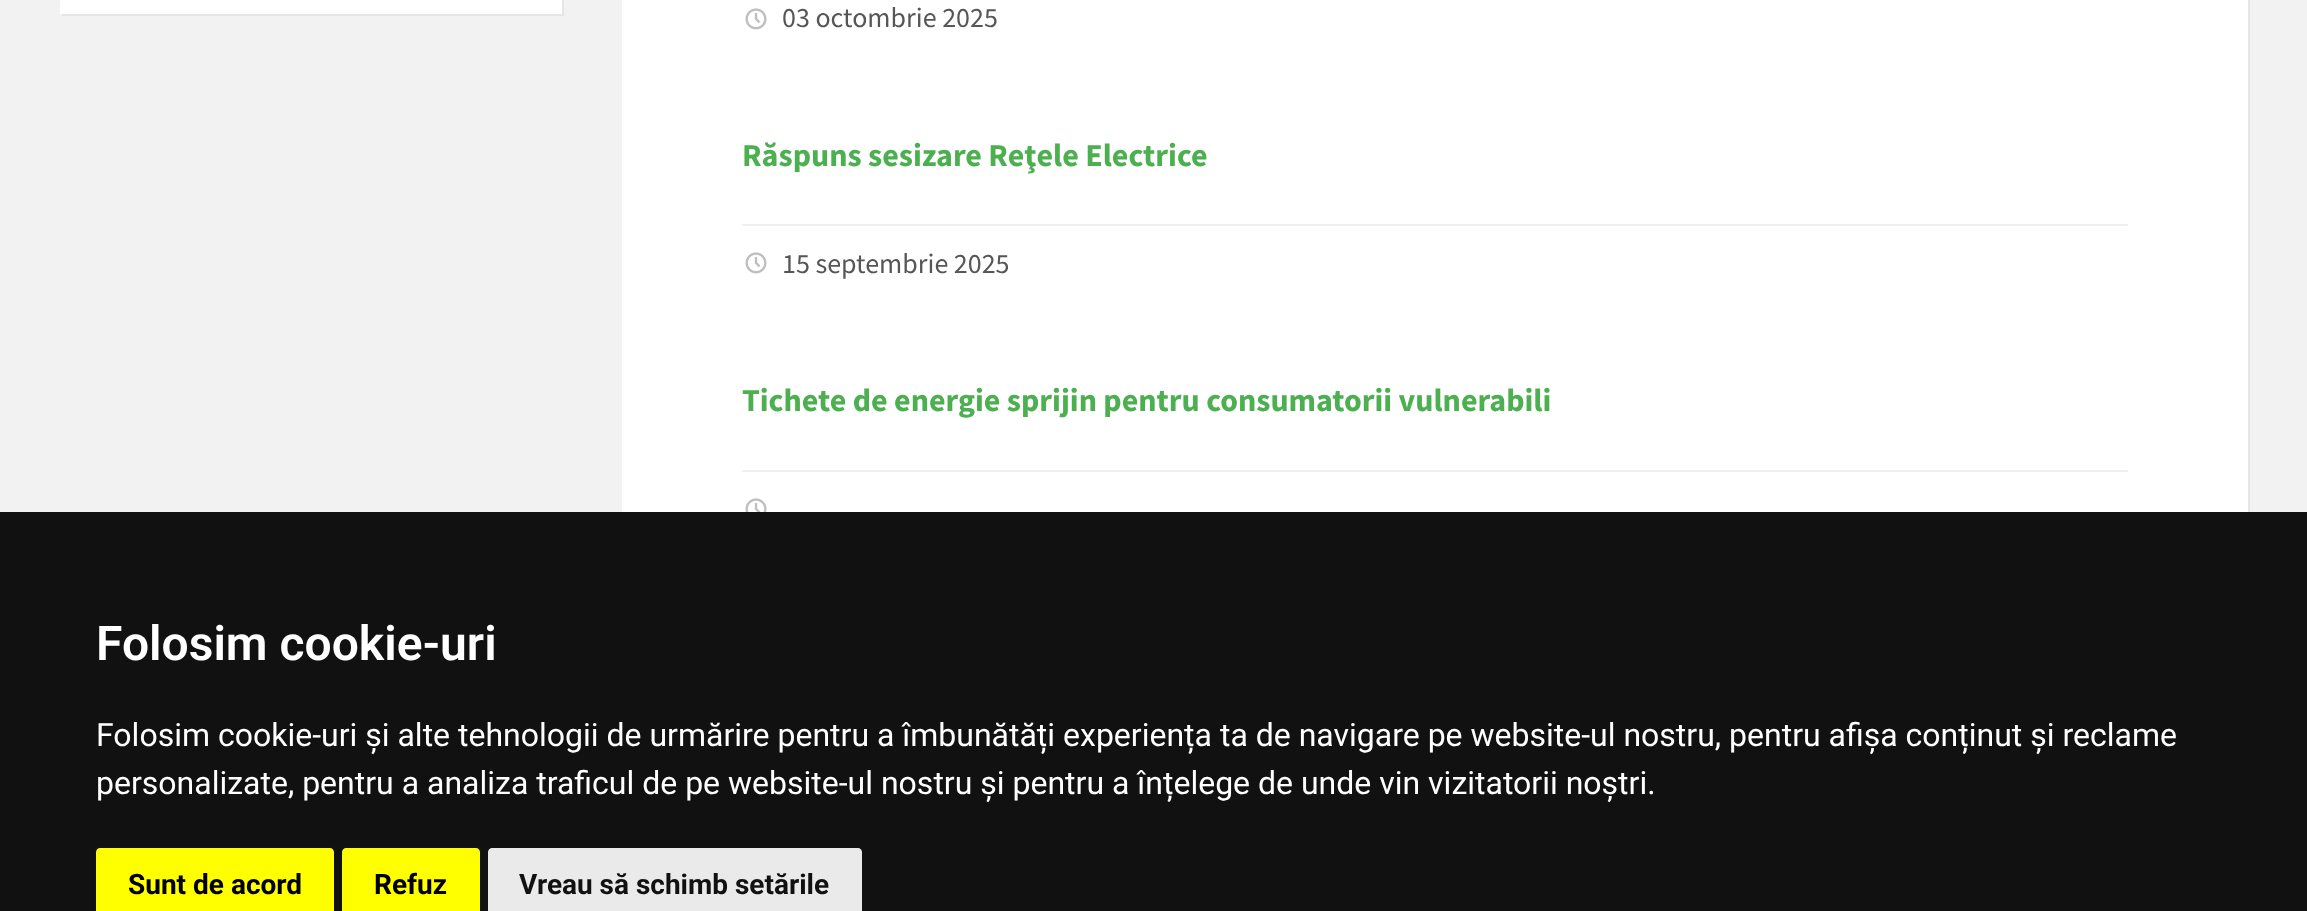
<svg xmlns="http://www.w3.org/2000/svg" width="2307" height="911">
<rect width="100%" height="100%" fill="#f2f2f2"/>
<path d="M62 14v2h502v-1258h-2v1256z" fill="#e6e6e6"/>
<rect x="60" width="502" height="14" fill="#fff"/>
<path d="M624 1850v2h1626v-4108h-2v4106z" fill="#e6e6e6"/>
<rect x="622" width="1626" height="512" fill="#fff"/>
<image x="745" y="8" width="22" height="22" href="media/1.png"/>
<text x="782" y="27" style="font-family:Source Sans Pro;font-size:28px;fill:#565656">03 octombrie 2025</text>
<text x="742" y="166" style="font-family:Source Sans Pro;font-size:32px;font-weight:bold;fill:#4caf50">Răspuns sesizare Reţele Electrice</text>
<rect x="742" y="224" width="1386" height="2" fill="#f0f0f0"/>
<image x="745" y="252" width="22" height="22" href="media/1.png"/>
<text x="782" y="273" style="font-family:Source Sans Pro;font-size:28px;fill:#565656">15 septembrie 2025</text>
<text x="742" y="411" style="font-family:Source Sans Pro;font-size:32px;font-weight:bold;fill:#4caf50">Tichete de energie sprijin pentru consumatorii vulnerabili</text>
<rect x="742" y="470" width="1386" height="2" fill="#f0f0f0"/>
<image x="745" y="498" width="22" height="14" href="media/2.png"/>
<rect y="512" width="2307" height="399" fill="#111"/>
<text x="96" y="660" style="font-family:Roboto;font-size:48px;font-weight:600;fill:#fff">Folosim cookie-uri</text>
<text x="96" y="746" style="font-family:Roboto;font-size:32px;fill:#fff">Folosim cookie-uri și alte tehnologii de urmărire pentru a îmbunătăți experiența ta de navigare pe website-ul nostru, pentru afișa conținut și reclame</text>
<text x="96" y="794" style="font-family:Roboto;font-size:32px;fill:#fff">personalizate, pentru a analiza traficul de pe website-ul nostru și pentru a înțelege de unde vin vizitatorii noștri.</text>
<path d="M100 848h230c2 0 4 2 4 4v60h-238v-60c0-2 2-4 4-4z" fill="#ff0"/>
<text x="128" y="894" style="font-family:Roboto;font-size:28px;font-weight:bold;fill:#000">Sunt de acord</text>
<path d="M346 848h130c2 0 4 2 4 4v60h-138v-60c0-2 2-4 4-4z" fill="#ff0"/>
<text x="374" y="894" style="font-family:Roboto;font-size:28px;font-weight:bold;fill:#000">Refuz</text>
<path d="M492 848h366c2 0 4 2 4 4v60h-374v-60c0-2 2-4 4-4z" fill="#eaeaea"/>
<text x="519" y="894" style="font-family:Roboto;font-size:28px;font-weight:bold;fill:#111">Vreau să schimb setările</text>
</svg>
